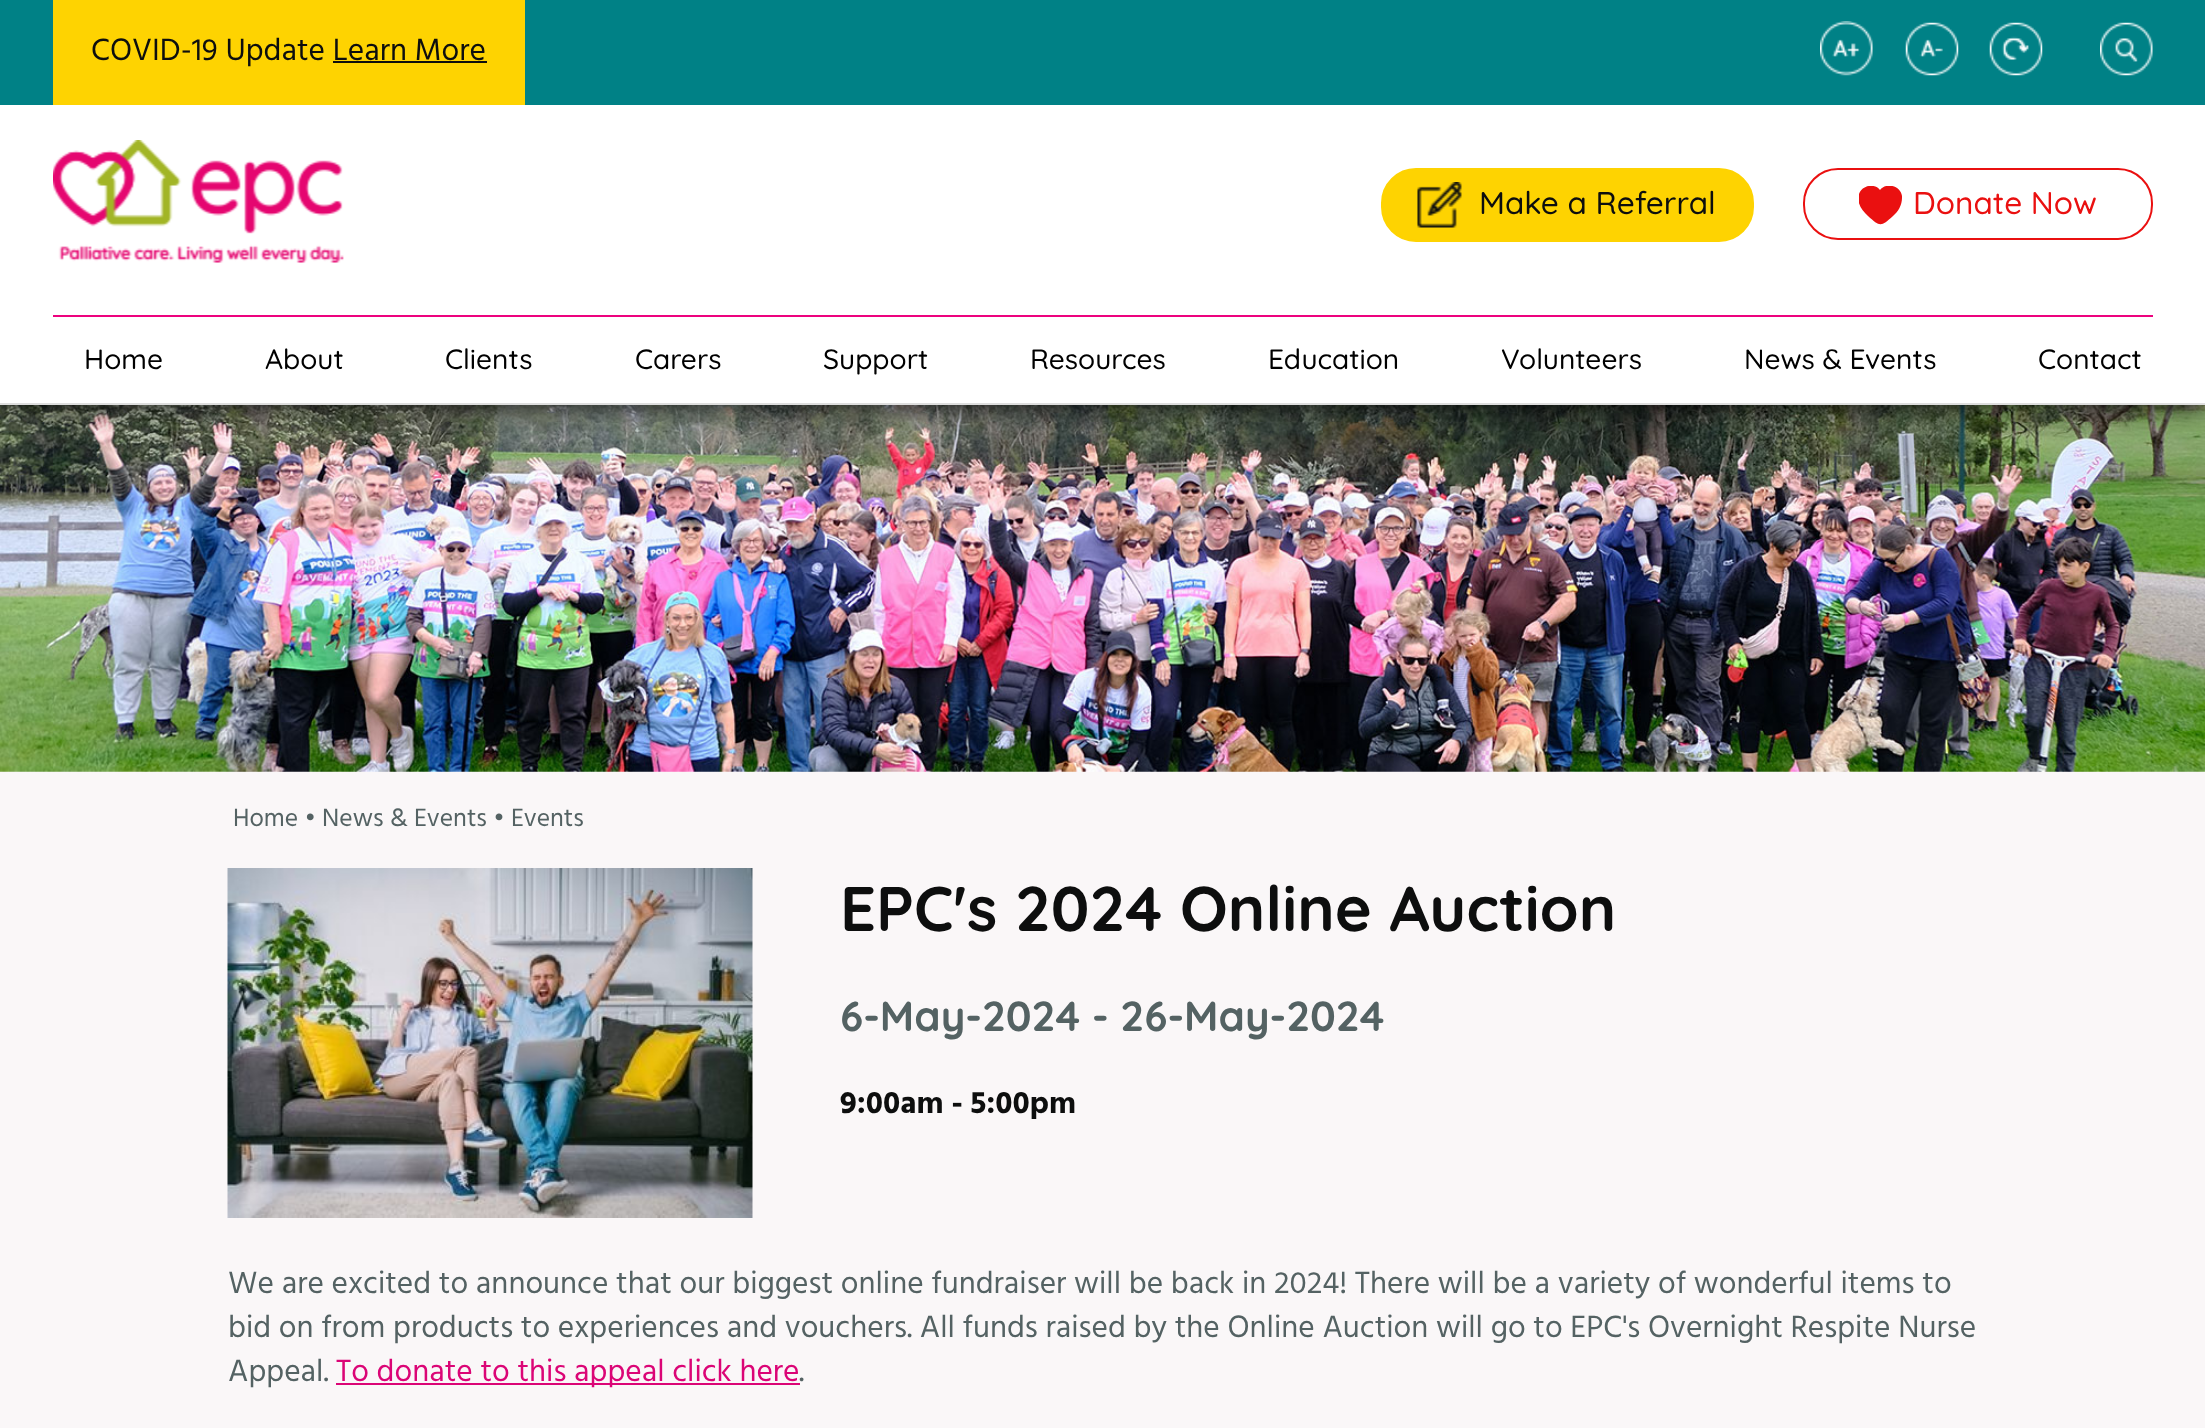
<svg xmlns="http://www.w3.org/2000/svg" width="2205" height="1428">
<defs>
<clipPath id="clip1"><rect x="1859" y="186" width="43" height="40"/></clipPath>
</defs>
<rect width="100%" height="100%" fill="#faf7f8"/>
<image x="0" y="405" width="2205" height="367" href="media/7.png"/>
<rect y="5" width="2205" height="405" fill="#000000bf" filter="blur(12px)"/>
<rect y="105" width="2205" height="298" fill="#fff"/>
<rect width="2205" height="105" fill="#008186"/>
<rect x="53" width="472" height="105" fill="#fed301"/>
<text x="91" y="60" style="font-family:Hind;font-size:31.5px;fill:#0d0e0e">COVID-19 Update Learn More</text>
<rect x="333" y="61" width="154" height="2" fill="#0d0e0e"/>
<image x="1820" y="21" width="53" height="55" href="media/1.png"/>
<image x="1905" y="22" width="54" height="54" href="media/2.png"/>
<image x="1989" y="22" width="54" height="54" href="media/3.png"/>
<image x="2100" y="22" width="53" height="54" href="media/4.png"/>
<image x="53" y="140" width="291" height="123" href="media/5.png"/>
<rect x="1382" y="169" width="371" height="72" rx="34" fill="#fed301" stroke="#fed301" stroke-width="2"/>
<image x="1417" y="182" width="45" height="46" href="media/6.png"/>
<text x="1479" y="214" style="font-family:'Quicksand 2';font-size:31.5px;font-weight:300;fill:#0d0e0e">Make a Referral</text>
<rect x="1804" y="169" width="348" height="70" rx="34" fill="none" stroke="#ea1010" stroke-width="2"/>
<g clip-path="url(#clip1)">
<path d="M1902 198c1-11-15-17-22-8c-5-7-18-5-21 4c-3 8 3 17 9 22c12 11 13 11 25 0c5-4 9-11 9-18z" fill="#ea1010"/>
</g>
<text x="1913" y="214" style="font-family:'Quicksand 2';font-size:31.5px;font-weight:300;fill:#ea1010">Donate Now</text>
<rect y="403" width="2205" height="2" fill="#dedede"/>
<rect x="53" y="315" width="2100" height="2" fill="#ed027e"/>
<text x="84" y="369" style="font-family:'Quicksand 2';font-size:28px;font-weight:300;fill:#000">Home</text>
<text x="265" y="369" style="font-family:'Quicksand 2';font-size:28px;font-weight:300;fill:#000">About</text>
<text x="445" y="369" style="font-family:'Quicksand 2';font-size:28px;font-weight:300;fill:#000">Clients</text>
<text x="635" y="369" style="font-family:'Quicksand 2';font-size:28px;font-weight:300;fill:#000">Carers</text>
<text x="823" y="369" style="font-family:'Quicksand 2';font-size:28px;font-weight:300;fill:#000">Support</text>
<text x="1030" y="369" style="font-family:'Quicksand 2';font-size:28px;font-weight:300;fill:#000">Resources</text>
<text x="1268" y="369" style="font-family:'Quicksand 2';font-size:28px;font-weight:300;fill:#000">Education</text>
<text x="1501" y="369" style="font-family:'Quicksand 2';font-size:28px;font-weight:300;fill:#000">Volunteers</text>
<text x="1744" y="369" style="font-family:'Quicksand 2';font-size:28px;font-weight:300;fill:#000">News &amp; Events</text>
<text x="2038" y="369" style="font-family:'Quicksand 2';font-size:28px;font-weight:300;fill:#000">Contact</text>
<text x="233" y="826" style="font-family:Hind;font-size:25.6px;fill:#546263">Home • News &amp; Events • Events</text>
<image x="227" y="868" width="526" height="350" href="media/8.png"/>
<text x="840" y="931" style="font-family:Quicksand;font-size:63px;font-weight:300;fill:#0d0e0e">EPC's 2024 Online Auction</text>
<text x="840" y="1031" style="font-family:Quicksand;font-size:42px;font-weight:300;fill:#546263">6-May-2024 - 26-May-2024</text>
<text x="840" y="1113" style="font-family:Hind;font-size:31.5px;font-weight:bold;fill:#0d0e0e">9:00am - 5:00pm</text>
<text x="228" y="1293" style="font-family:Hind;font-size:31.5px;fill:#546263">We are excited to announce that our biggest online fundraiser will be back in 2024! There will be a variety of wonderful items to</text>
<text x="228" y="1337" style="font-family:Hind;font-size:31.5px;fill:#546263">bid on from products to experiences and vouchers. All funds raised by the Online Auction will go to EPC's Overnight Respite Nurse</text>
<text x="228" y="1381" style="font-family:Hind;font-size:31.5px;fill:#546263">Appeal.</text>
<rect x="336" y="1383" width="464" height="2" fill="#db0576"/>
<text x="336" y="1381" style="font-family:Hind;font-size:31.5px;fill:#db0576">To donate to this appeal click here</text>
<text x="799" y="1381" style="font-family:Hind;font-size:31.5px;fill:#546263">.</text>
</svg>
